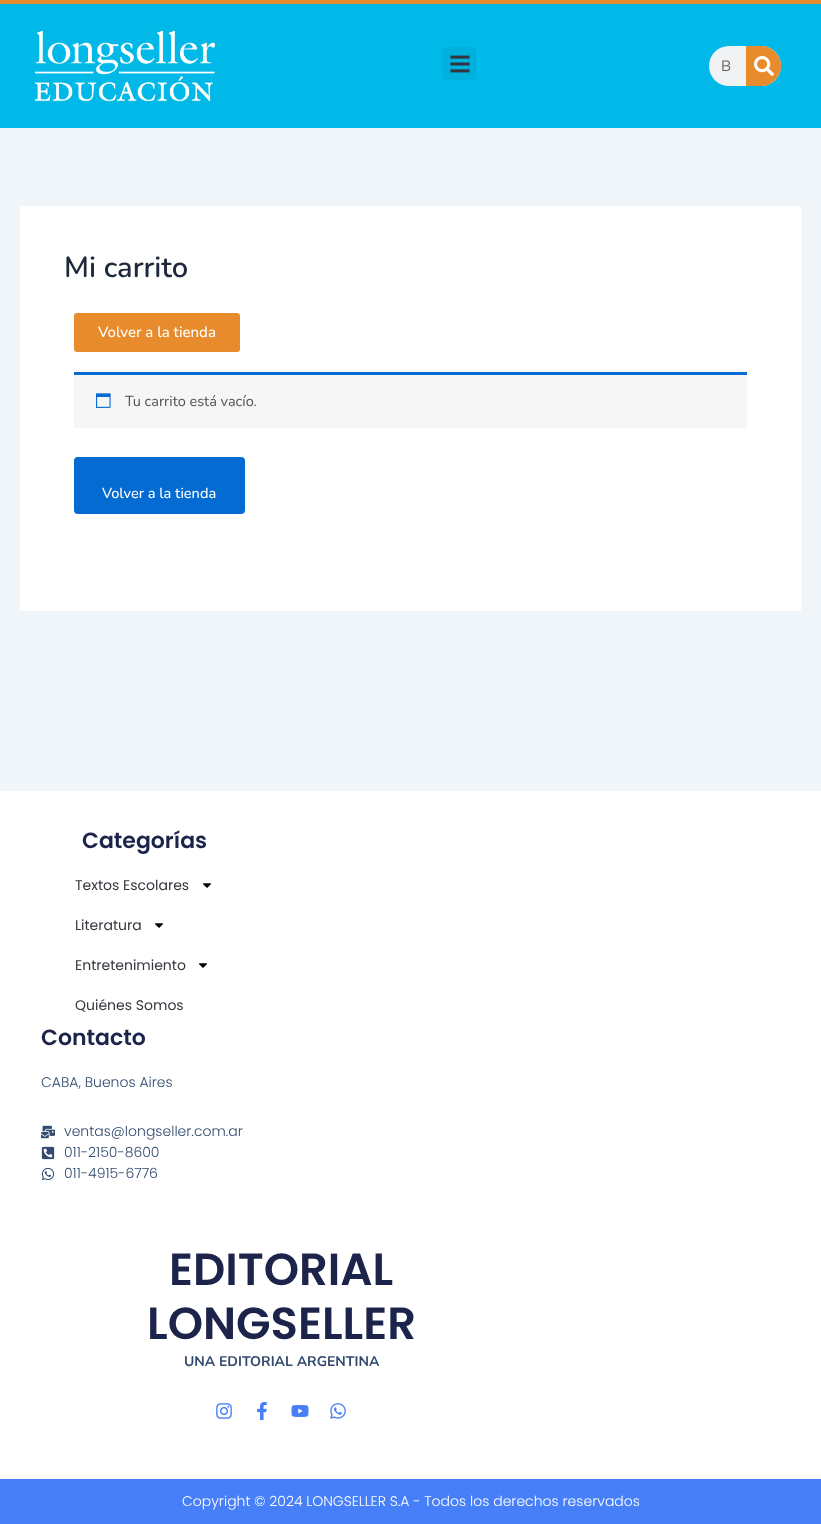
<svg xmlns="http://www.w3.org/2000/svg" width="821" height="1524">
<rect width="100%" height="100%" fill="#f0f5fa"/>
<rect width="821" height="4" fill="#e78b2c"/>
<rect y="4" width="821" height="124" fill="#00b9e8"/>
<image x="35" y="30" width="180" height="72" href="media/1.png"/>
<rect x="443" y="47" width="33" height="33" rx="3" fill="#00b0dc"/>
<image x="450" y="55" width="20" height="18" href="media/2.png"/>
<rect x="709" y="46" width="72" height="40" rx="20" fill="#f1f2f3"/>
<text x="721" y="71" style="font-family:Nunito;font-size:15px;fill:#666162">B</text>
<path d="M746 46h15c11 0 20 9 20 20c0 11-9 20-20 20h-15z" fill="#e78b2c"/>
<image x="754" y="56" width="20" height="20" href="media/3.png"/>
<rect x="20" y="206" width="781" height="405" fill="#fff"/>
<text x="64" y="277" style="font-family:Nunito;font-size:29px;font-weight:600;fill:#1e293b">Mi carrito</text>
<rect x="74" y="313" width="166" height="39" rx="3" fill="#e78b2c"/>
<text x="98" y="337" style="font-family:Nunito Sans;font-size:15px;font-weight:500;fill:#fff">Volver a la tienda</text>
<rect x="74" y="375" width="673" height="53" fill="#f7f6f7"/>
<rect x="74" y="372" width="673" height="3" fill="#046bd2"/>
<image x="96" y="393" width="15" height="15" href="media/4.png"/>
<text x="125" y="406" style="font-family:Nunito;font-size:14.5px;fill:#515151">Tu carrito está vacío.</text>
<rect x="74" y="457" width="171" height="57" rx="4" fill="#046bd2"/>
<text x="102" y="498" style="font-family:Nunito;font-size:14.5px;font-weight:500;fill:#fff">Volver a la tienda</text>
<rect y="791" width="821" height="688" fill="#fff"/>
<text x="82" y="848" style="font-family:Poppins;font-size:22px;font-weight:600;fill:#1c244b">Categorías</text>
<text x="75" y="890" style="font-family:Poppins;font-size:14px;fill:#33373d">Textos Escolares</text>
<image x="203" y="883" width="8" height="5" href="media/5.png"/>
<text x="75" y="930" style="font-family:Poppins;font-size:14px;fill:#33373d">Literatura</text>
<image x="155" y="923" width="8" height="5" href="media/5.png"/>
<text x="75" y="970" style="font-family:Poppins;font-size:14px;fill:#33373d">Entretenimiento</text>
<image x="199" y="963" width="8" height="5" href="media/5.png"/>
<text x="75" y="1010" style="font-family:Poppins;font-size:14px;fill:#33373d">Quiénes Somos</text>
<text x="41" y="1045" style="font-family:Poppins;font-size:22px;font-weight:600;fill:#1c244b">Contacto</text>
<text x="41" y="1087" style="font-family:Poppins;font-size:14px;font-weight:300;fill:#324a6d">CABA, Buenos Aires</text>
<image x="41" y="1125" width="14" height="14" href="media/6.png"/>
<text x="64" y="1136" style="font-family:Poppins;font-size:14px;font-weight:300;fill:#324a6d">ventas@longseller.com.ar</text>
<image x="41" y="1146" width="14" height="14" href="media/7.png"/>
<text x="64" y="1157" style="font-family:Poppins;font-size:14px;font-weight:300;fill:#324a6d">011-2150-8600</text>
<image x="41" y="1167" width="14" height="13" href="media/8.png"/>
<text x="64" y="1178" style="font-family:Poppins;font-size:14px;font-weight:300;fill:#324a6d">011-4915-6776</text>
<text x="169" y="1285" style="font-family:Poppins;font-size:45px;font-weight:600;fill:#1c244b">EDITORIAL</text>
<text x="147" y="1339" style="font-family:Poppins;font-size:45px;font-weight:600;fill:#1c244b">LONGSELLER</text>
<text x="184" y="1366" style="font-family:Nunito;font-size:14px;font-weight:bold;fill:#324a6d">UNA EDITORIAL ARGENTINA</text>
<image x="216" y="1403" width="16" height="16" href="media/9.png"/>
<image x="257" y="1402" width="10" height="18" href="media/10.png"/>
<image x="291" y="1405" width="18" height="12" href="media/11.png"/>
<image x="330" y="1403" width="16" height="16" href="media/12.png"/>
<rect y="1479" width="821" height="45" fill="#467ff7"/>
<text x="182" y="1506" style="font-family:Poppins;font-size:14px;font-weight:300;fill:#fff">Copyright © 2024 LONGSELLER S.A - Todos los derechos reservados</text>
</svg>
